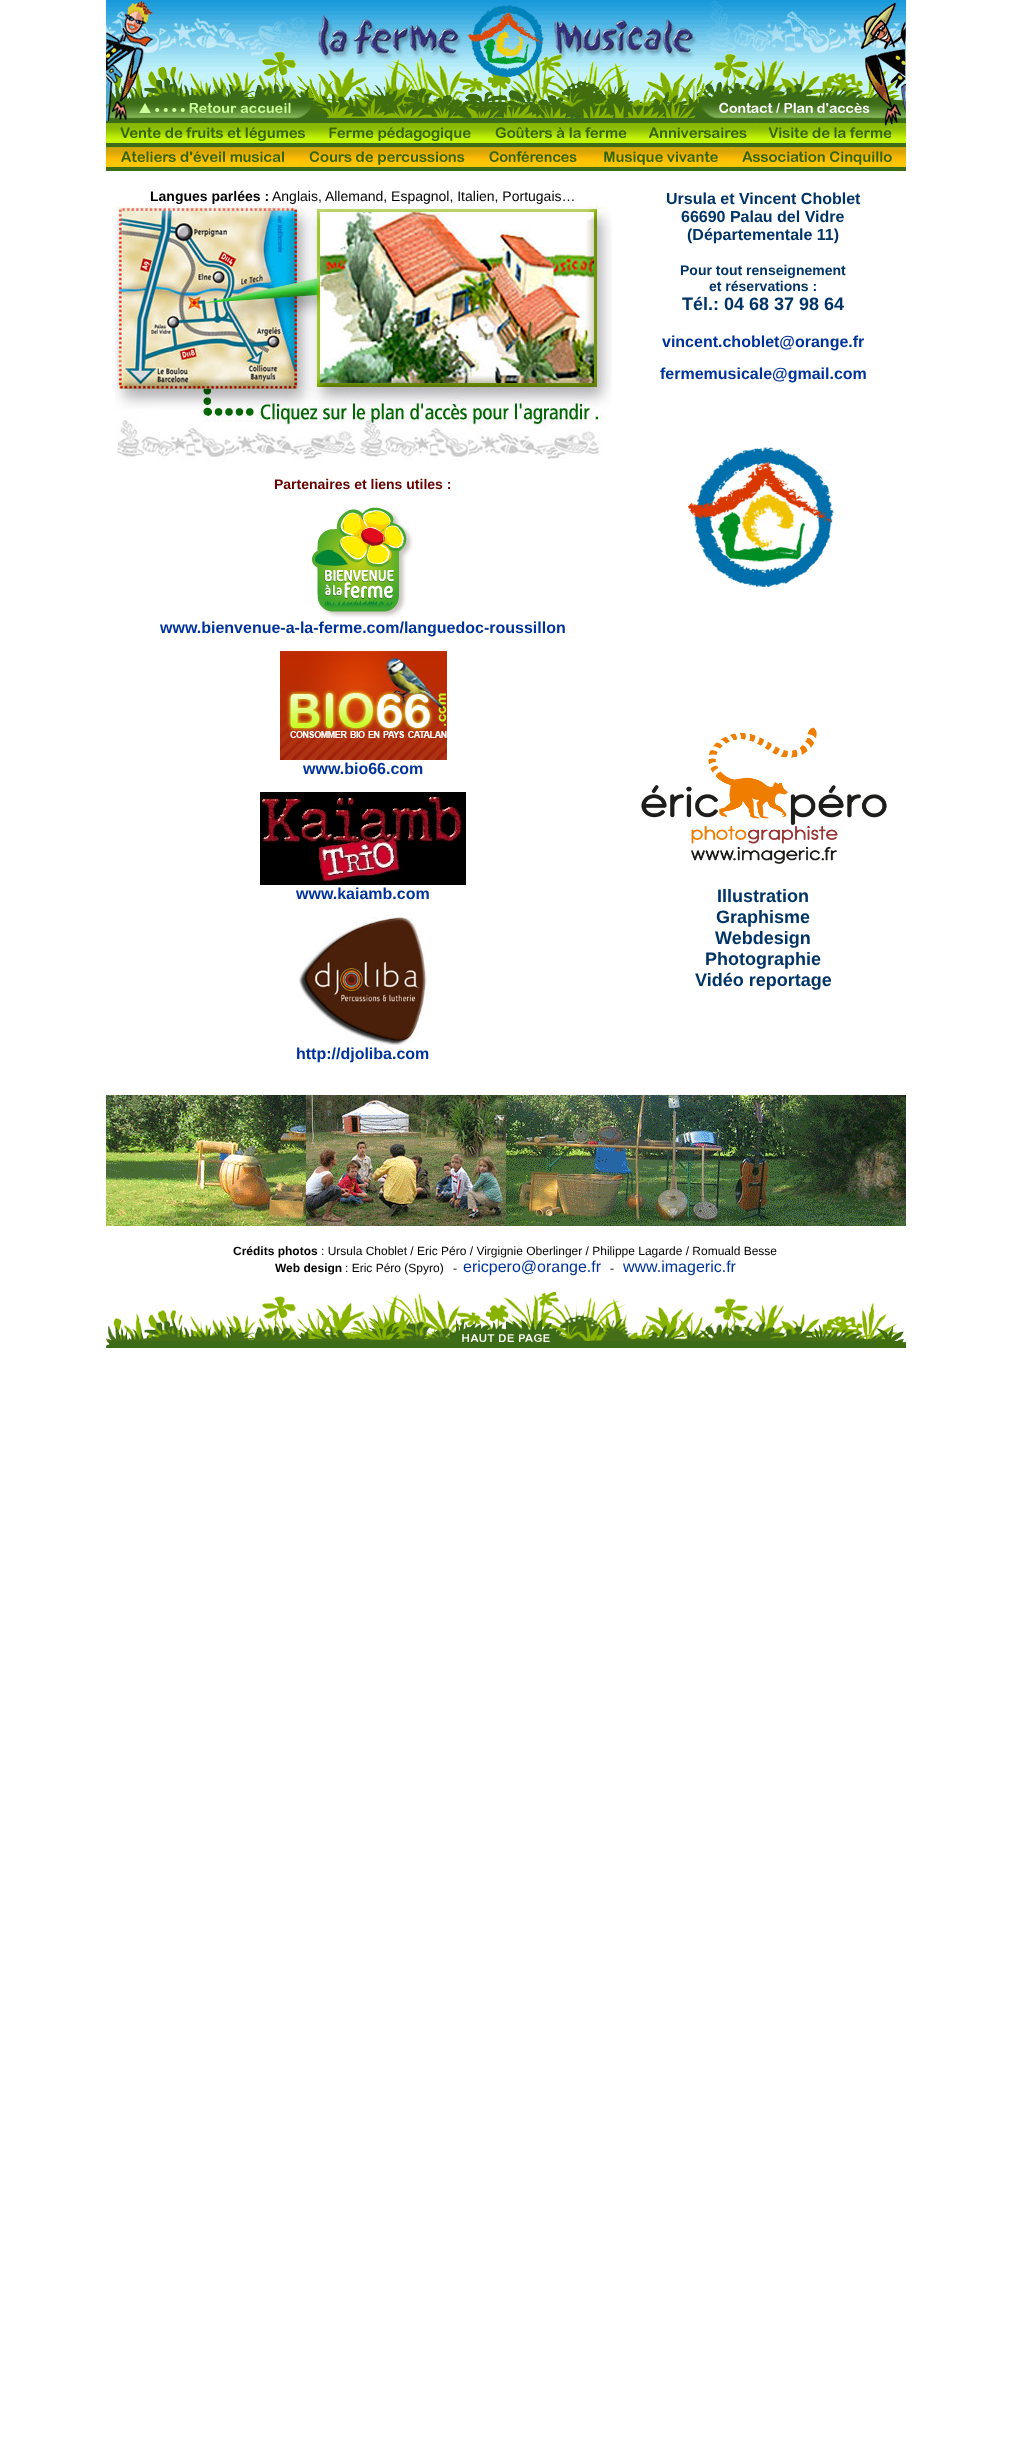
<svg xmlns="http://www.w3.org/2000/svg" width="1011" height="2437">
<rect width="100%" height="100%" fill="#fff"/>
<image x="106" y="0" width="399" height="100" href="media/1.png"/>
<image x="505" y="0" width="401" height="100" href="media/2.png"/>
<image x="106" y="100" width="33" height="18" href="media/3.png"/>
<image x="139" y="100" width="158" height="18" href="media/4.png"/>
<image x="297" y="100" width="418" height="18" href="media/5.png"/>
<image x="715" y="100" width="155" height="18" href="media/6.png"/>
<image x="870" y="100" width="36" height="18" href="media/7.png"/>
<image x="106" y="118" width="800" height="5" href="media/8.png"/>
<image x="106" y="123" width="210" height="20" href="media/9.png"/>
<image x="316" y="123" width="167" height="20" href="media/10.png"/>
<image x="483" y="123" width="156" height="20" href="media/11.png"/>
<image x="639" y="123" width="118" height="20" href="media/12.png"/>
<image x="757" y="123" width="149" height="20" href="media/13.png"/>
<rect x="106" y="143" width="800" height="4" fill="#3c6c17"/>
<image x="106" y="147" width="190" height="20" href="media/14.png"/>
<image x="296" y="147" width="182" height="20" href="media/15.png"/>
<image x="478" y="147" width="114" height="20" href="media/16.png"/>
<image x="592" y="147" width="138" height="20" href="media/17.png"/>
<image x="730" y="147" width="176" height="20" href="media/18.png"/>
<rect x="106" y="167" width="800" height="4" fill="#3c6c17"/>
<text x="150" y="201" style="font-family:Liberation Sans;font-size:14px;font-weight:bold;fill:#000">Langues parlées :</text>
<text x="272" y="201" style="font-family:Liberation Sans;font-size:14px;fill:#000">Anglais, Allemand, Espagnol, Italien, Portugais…</text>
<image x="115" y="206" width="497" height="256" href="media/19.png"/>
<text x="274" y="489" style="font-family:Liberation Sans;font-size:14px;font-weight:bold;fill:#600">Partenaires et liens utiles :</text>
<image x="312" y="507" width="101" height="111" href="media/20.png"/>
<text x="160" y="633" style="font-family:Liberation Sans;font-size:16px;font-weight:bold;fill:#039">www.bienvenue-a-la-ferme.com/languedoc-roussillon</text>
<image x="280" y="651" width="167" height="109" href="media/21.png"/>
<text x="303" y="774" style="font-family:Liberation Sans;font-size:16px;font-weight:bold;fill:#039">www.bio66.com</text>
<image x="260" y="792" width="206" height="93" href="media/22.png"/>
<text x="296" y="899" style="font-family:Liberation Sans;font-size:16px;font-weight:bold;fill:#039">www.kaiamb.com</text>
<image x="299" y="917" width="128" height="128" href="media/23.png"/>
<text x="296" y="1059" style="font-family:Liberation Sans;font-size:16px;font-weight:bold;fill:#039">http://djoliba.com</text>
<text x="666" y="204" style="font-family:Liberation Sans;font-size:16px;font-weight:bold;fill:#036">Ursula et Vincent Choblet</text>
<text x="681" y="222" style="font-family:Liberation Sans;font-size:16px;font-weight:bold;fill:#036">66690 Palau del Vidre</text>
<text x="687" y="240" style="font-family:Liberation Sans;font-size:16px;font-weight:bold;fill:#036">(Départementale 11)</text>
<text x="680" y="275" style="font-family:Liberation Sans;font-size:14px;font-weight:bold;fill:#036">Pour tout renseignement</text>
<text x="709" y="291" style="font-family:Liberation Sans;font-size:14px;font-weight:bold;fill:#036">et réservations :</text>
<text x="682" y="310" style="font-family:Liberation Sans;font-size:18px;font-weight:bold;fill:#036">Tél.: 04 68 37 98 64</text>
<text x="662" y="347" style="font-family:Liberation Sans;font-size:16px;font-weight:bold;fill:#039">vincent.choblet@orange.fr</text>
<text x="660" y="379" style="font-family:Liberation Sans;font-size:16px;font-weight:bold;fill:#039">fermemusicale@gmail.com</text>
<image x="688" y="447" width="146" height="140" href="media/24.png"/>
<image x="641" y="727" width="246" height="137" href="media/25.png"/>
<text x="717" y="902" style="font-family:Liberation Sans;font-size:18px;font-weight:bold;fill:#036">Illustration</text>
<text x="716" y="923" style="font-family:Liberation Sans;font-size:18px;font-weight:bold;fill:#036">Graphisme</text>
<text x="715" y="944" style="font-family:Liberation Sans;font-size:18px;font-weight:bold;fill:#036">Webdesign</text>
<text x="705" y="965" style="font-family:Liberation Sans;font-size:18px;font-weight:bold;fill:#036">Photographie</text>
<text x="695" y="986" style="font-family:Liberation Sans;font-size:18px;font-weight:bold;fill:#036">Vidéo reportage</text>
<image x="106" y="1095" width="800" height="131" href="media/26.png"/>
<text x="233" y="1255" style="font-family:Liberation Sans;font-size:12px;font-weight:bold;fill:#000">Crédits photos</text>
<text x="321" y="1255" style="font-family:Liberation Sans;font-size:12px;fill:#000">: Ursula Choblet / Eric Péro / Virgignie Oberlinger / Philippe Lagarde / Romuald Besse</text>
<text x="275" y="1272" style="font-family:Liberation Sans;font-size:12px;font-weight:bold;fill:#000">Web design</text>
<text x="345" y="1272" style="font-family:Liberation Sans;font-size:12px;fill:#000">: Eric Péro (Spyro)</text>
<text x="453" y="1272" style="font-family:Liberation Serif;font-size:12px;fill:#000">-</text>
<text x="463" y="1272" style="font-family:Liberation Sans;font-size:16px;fill:#039">ericpero@orange.fr</text>
<text x="610" y="1272" style="font-family:Liberation Serif;font-size:12px;fill:#000">-</text>
<text x="623" y="1272" style="font-family:Liberation Sans;font-size:16px;fill:#039">www.imageric.fr</text>
<image x="106" y="1292" width="800" height="56" href="media/27.png"/>
</svg>
